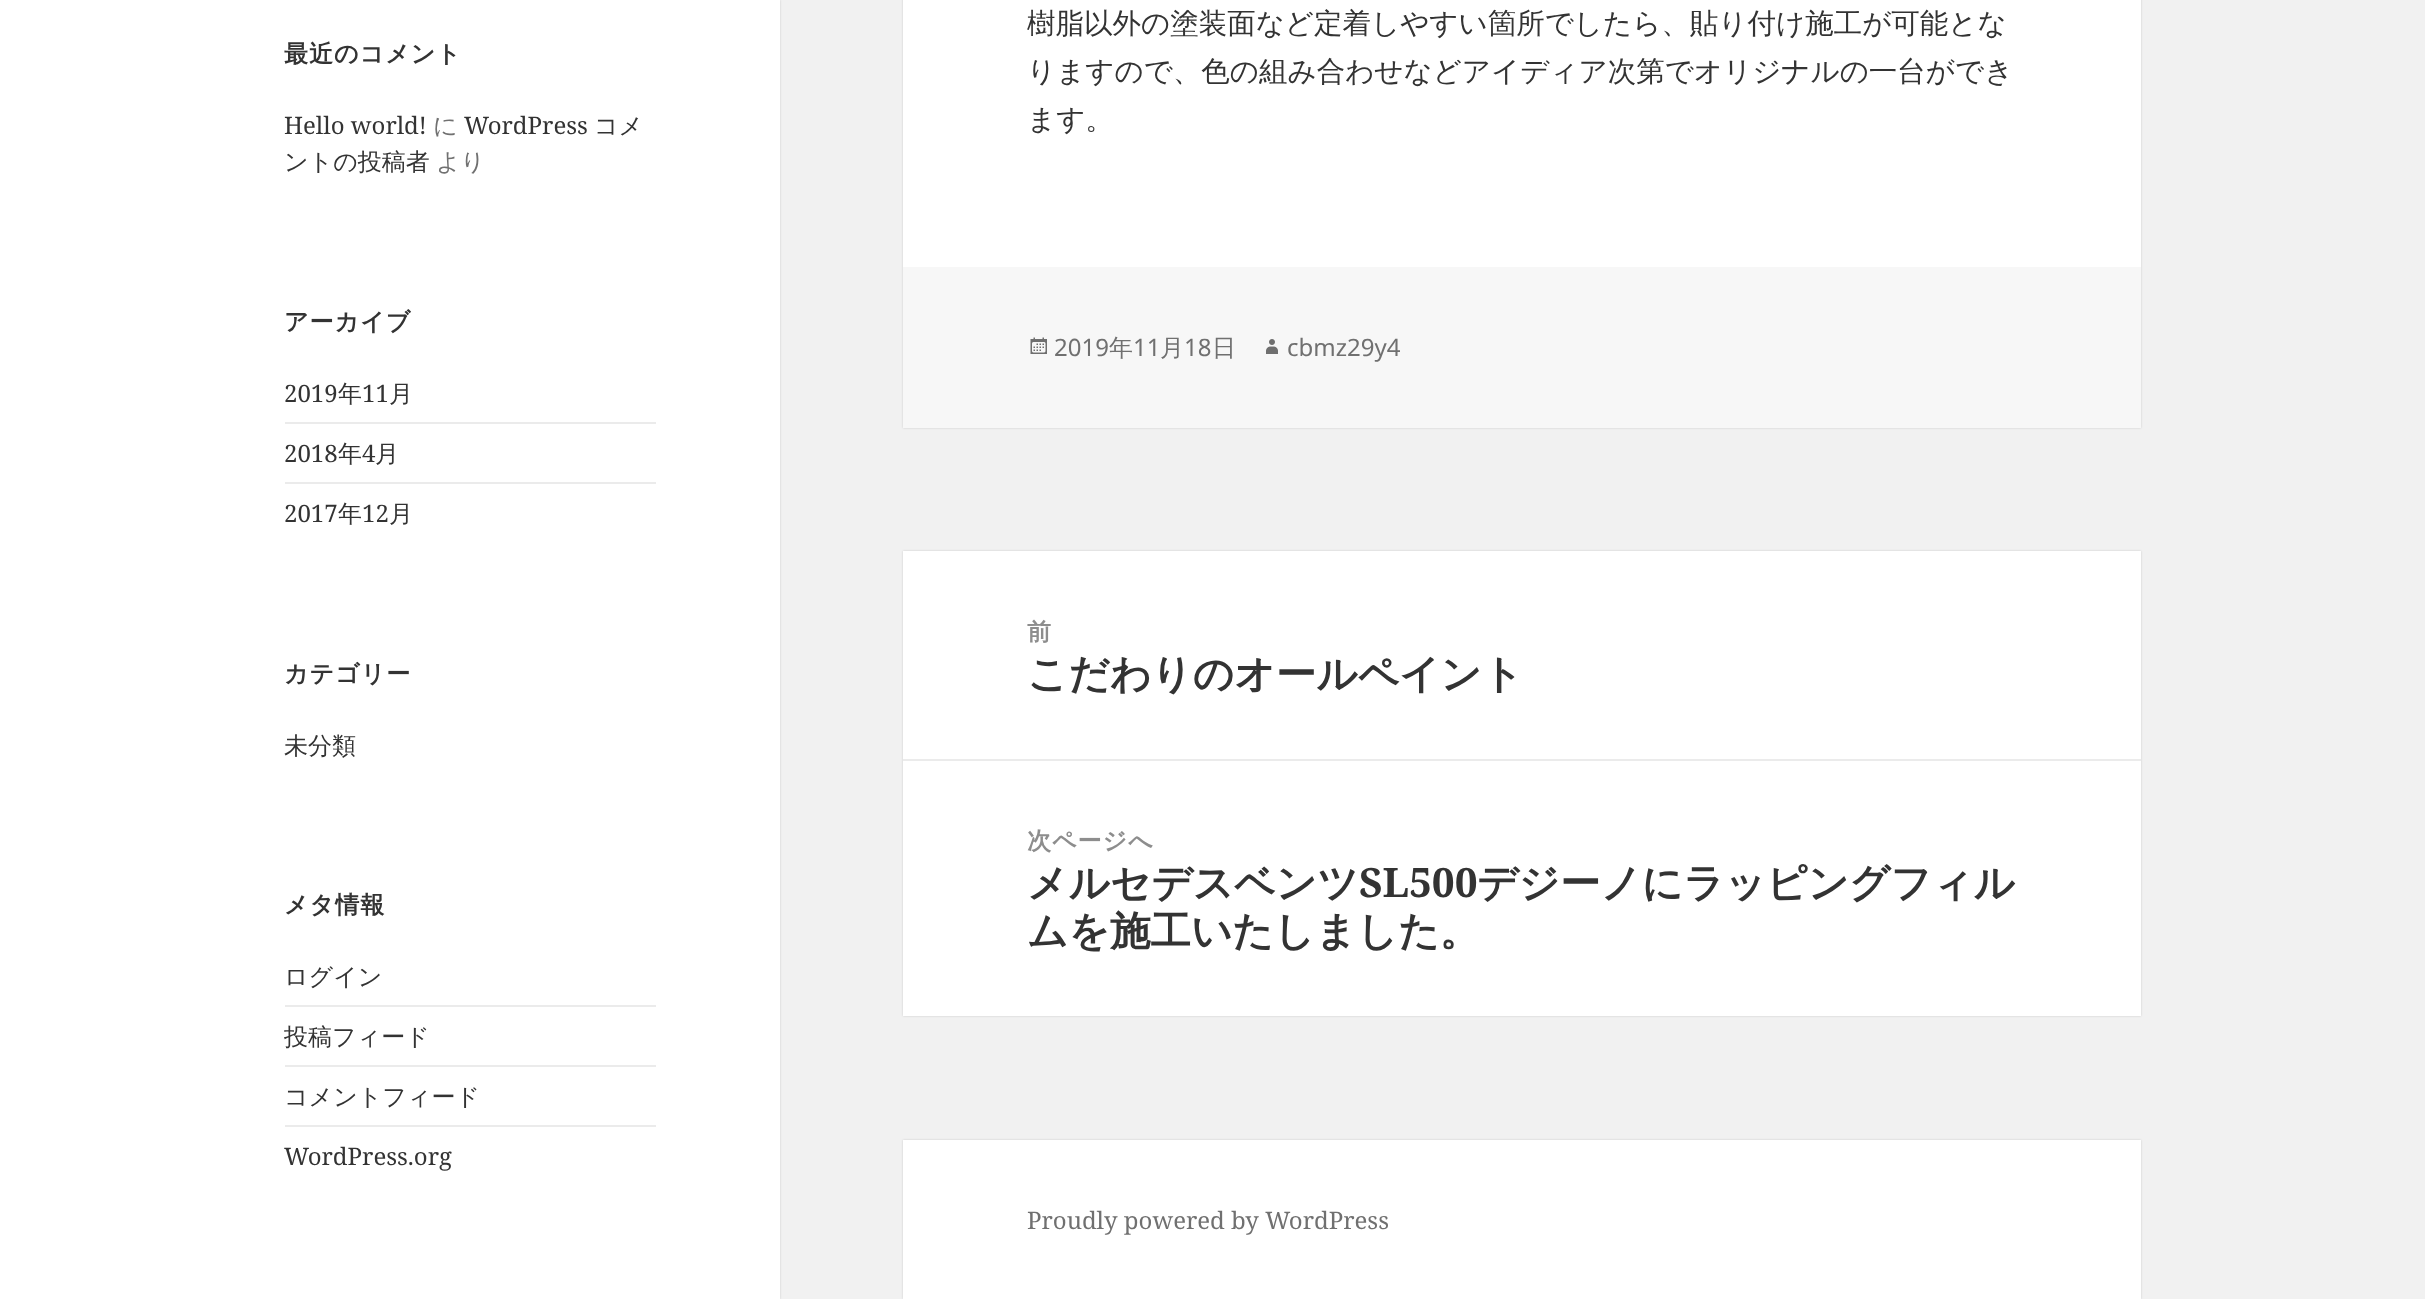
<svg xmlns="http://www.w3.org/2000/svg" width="2425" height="1299">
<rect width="100%" height="100%" fill="#f1f1f1"/>
<rect width="780" height="1299" fill="#00000026" filter="blur(1px)"/>
<rect width="780" height="1299" fill="#fff"/>
<text x="284" y="62" style="font-family:WenQuanYi Zen Hei;font-size:24px;font-weight:bold;letter-spacing:1px;fill:#333">最近のコメント</text>
<text x="284" y="134" style="font-family:Noto Serif;font-size:24px;fill:#333">Hello world!</text>
<text x="433" y="134" style="font-family:WenQuanYi Zen Hei;font-size:24px;font-weight:500;fill:#707070">に</text>
<text x="464" y="134" style="font-family:Noto Serif;font-size:24px;fill:#333">WordPress</text>
<text x="594" y="134" style="font-family:WenQuanYi Zen Hei;font-size:24px;font-weight:500;fill:#333">コメ</text>
<text x="284" y="170" style="font-family:WenQuanYi Zen Hei;font-size:24px;font-weight:500;fill:#333">ントの投稿者</text>
<text x="436" y="170" style="font-family:WenQuanYi Zen Hei;font-size:24px;font-weight:500;fill:#707070">より</text>
<text x="284" y="330" style="font-family:WenQuanYi Zen Hei;font-size:24px;font-weight:bold;letter-spacing:1px;fill:#333">アーカイブ</text>
<text x="284" y="402" style="font-family:Noto Serif;font-size:24px;fill:#333">2019</text>
<text x="338" y="402" style="font-family:WenQuanYi Zen Hei;font-size:24px;font-weight:500;fill:#333">年</text>
<text x="362" y="402" style="font-family:Noto Serif;font-size:24px;fill:#333">11</text>
<text x="389" y="402" style="font-family:WenQuanYi Zen Hei;font-size:24px;font-weight:500;fill:#333">月</text>
<rect x="285" y="422" width="371" height="2" fill="#ebebeb"/>
<text x="284" y="462" style="font-family:Noto Serif;font-size:24px;fill:#333">2018</text>
<text x="338" y="462" style="font-family:WenQuanYi Zen Hei;font-size:24px;font-weight:500;fill:#333">年</text>
<text x="362" y="462" style="font-family:Noto Serif;font-size:24px;fill:#333">4</text>
<text x="375" y="462" style="font-family:WenQuanYi Zen Hei;font-size:24px;font-weight:500;fill:#333">月</text>
<rect x="285" y="482" width="371" height="2" fill="#ebebeb"/>
<text x="284" y="522" style="font-family:Noto Serif;font-size:24px;fill:#333">2017</text>
<text x="338" y="522" style="font-family:WenQuanYi Zen Hei;font-size:24px;font-weight:500;fill:#333">年</text>
<text x="362" y="522" style="font-family:Noto Serif;font-size:24px;fill:#333">12</text>
<text x="389" y="522" style="font-family:WenQuanYi Zen Hei;font-size:24px;font-weight:500;fill:#333">月</text>
<text x="284" y="682" style="font-family:WenQuanYi Zen Hei;font-size:24px;font-weight:bold;letter-spacing:1px;fill:#333">カテゴリー</text>
<text x="284" y="754" style="font-family:WenQuanYi Zen Hei;font-size:24px;font-weight:500;fill:#333">未分類</text>
<text x="284" y="913" style="font-family:WenQuanYi Zen Hei;font-size:24px;font-weight:bold;letter-spacing:1px;fill:#333">メタ情報</text>
<text x="284" y="985" style="font-family:WenQuanYi Zen Hei;font-size:24px;font-weight:500;fill:#333">ログイン</text>
<rect x="285" y="1005" width="371" height="2" fill="#ebebeb"/>
<text x="284" y="1045" style="font-family:WenQuanYi Zen Hei;font-size:24px;font-weight:500;fill:#333">投稿フィード</text>
<rect x="285" y="1065" width="371" height="2" fill="#ebebeb"/>
<text x="284" y="1105" style="font-family:WenQuanYi Zen Hei;font-size:24px;font-weight:500;fill:#333">コメントフィード</text>
<rect x="285" y="1125" width="371" height="2" fill="#ebebeb"/>
<text x="284" y="1165" style="font-family:Noto Serif;font-size:24px;fill:#333">WordPress.org</text>
<rect x="903" y="-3" width="1238" height="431" fill="#00000026" filter="blur(1px)"/>
<rect x="903" width="1238" height="267" fill="#fff"/>
<text x="1027" y="33" style="font-family:WenQuanYi Zen Hei;font-size:28.5px;font-weight:500;fill:#333">樹脂以外の塗装面など定着しやすい箇所でしたら、貼り付け施工が可能とな</text>
<text x="1027" y="81" style="font-family:WenQuanYi Zen Hei;font-size:28.5px;font-weight:500;fill:#333">りますので、色の組み合わせなどアイディア次第でオリジナルの一台ができ</text>
<text x="1027" y="129" style="font-family:WenQuanYi Zen Hei;font-size:28.5px;font-weight:500;fill:#333">ます。</text>
<rect x="903" y="267" width="1238" height="161" fill="#f7f7f7"/>
<image x="1030" y="337" width="17" height="17" href="media/1.png"/>
<text x="1054" y="356" style="font-family:Noto Sans;font-size:24px;fill:#707070">2019</text>
<text x="1109" y="356" style="font-family:WenQuanYi Zen Hei;font-size:24px;font-weight:500;fill:#707070">年</text>
<text x="1133" y="356" style="font-family:Noto Sans;font-size:24px;fill:#707070">11</text>
<text x="1160" y="356" style="font-family:WenQuanYi Zen Hei;font-size:24px;font-weight:500;fill:#707070">月</text>
<text x="1184" y="356" style="font-family:Noto Sans;font-size:24px;fill:#707070">18</text>
<text x="1212" y="356" style="font-family:WenQuanYi Zen Hei;font-size:24px;font-weight:500;fill:#707070">日</text>
<image x="1266" y="339" width="12" height="15" href="media/2.png"/>
<text x="1287" y="356" style="font-family:Noto Sans;font-size:24px;fill:#707070">cbmz29y4</text>
<rect x="903" y="551" width="1238" height="465" fill="#00000026" filter="blur(1px)"/>
<rect x="903" y="551" width="1238" height="465" fill="#fff"/>
<text x="1027" y="640" style="font-family:WenQuanYi Zen Hei;font-size:24px;font-weight:bold;letter-spacing:1px;fill:#8d8d8d">前</text>
<text x="1027" y="688" style="font-family:WenQuanYi Zen Hei;font-size:40.5px;font-weight:bold;fill:#333">こだわりのオールペイント</text>
<rect x="903" y="759" width="1238" height="2" fill="#ebebeb"/>
<text x="1027" y="849" style="font-family:WenQuanYi Zen Hei;font-size:24px;font-weight:bold;letter-spacing:1px;fill:#8d8d8d">次ページへ</text>
<text x="1027" y="897" style="font-family:WenQuanYi Zen Hei;font-size:40.5px;font-weight:bold;fill:#333">メルセデスベンツ</text>
<text x="1359" y="897" style="font-family:Noto Serif;font-size:40.5px;font-weight:bold;fill:#333">SL500</text>
<text x="1477" y="897" style="font-family:WenQuanYi Zen Hei;font-size:40.5px;font-weight:bold;fill:#333">デジーノにラッピングフィル</text>
<text x="1027" y="945" style="font-family:WenQuanYi Zen Hei;font-size:40.5px;font-weight:bold;fill:#333">ムを施工いたしました。</text>
<rect x="903" y="1140" width="1238" height="159" fill="#00000026" filter="blur(1px)"/>
<rect x="903" y="1140" width="1238" height="159" fill="#fff"/>
<text x="1027" y="1229" style="font-family:Noto Serif;font-size:24px;fill:#707070">Proudly powered by WordPress</text>
</svg>
